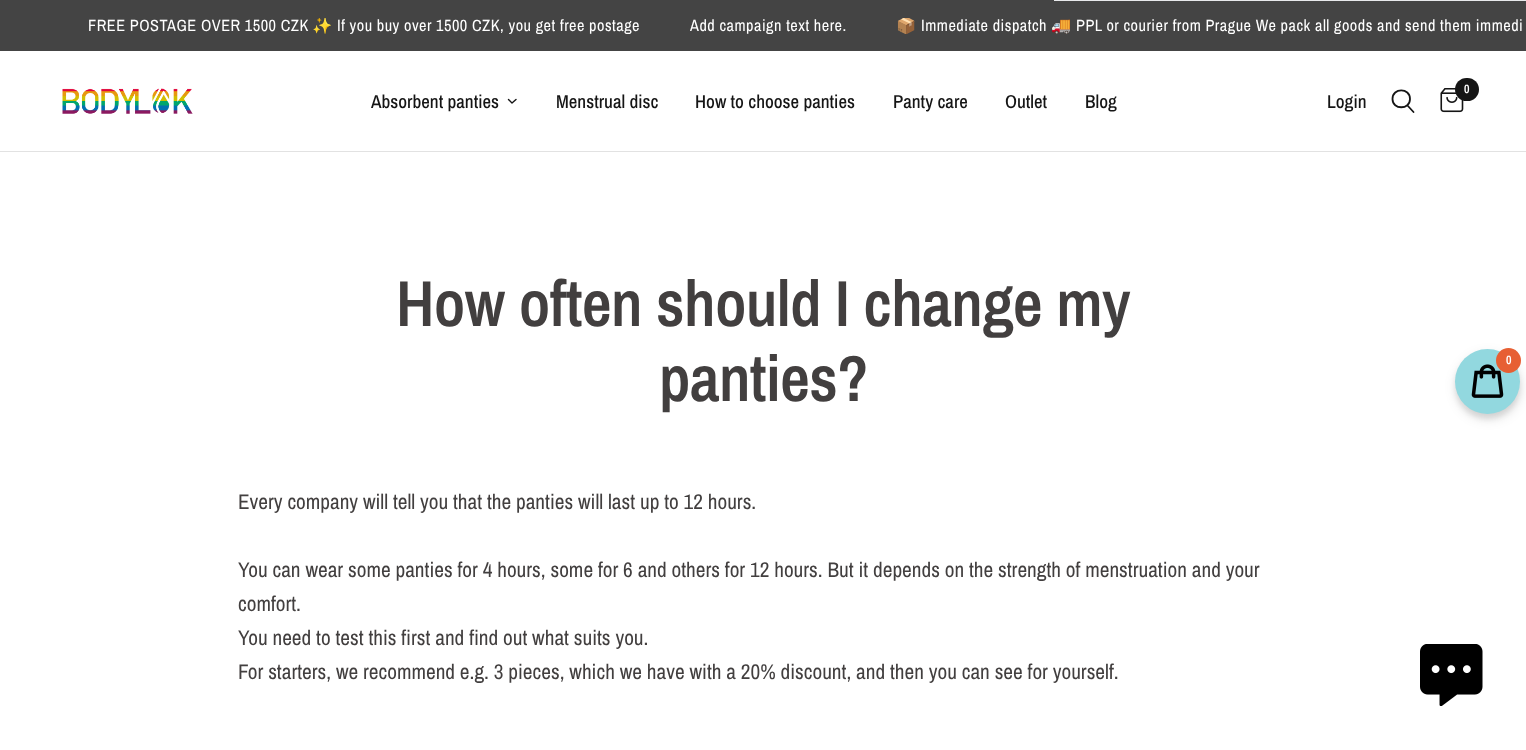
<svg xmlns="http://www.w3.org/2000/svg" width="1526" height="750">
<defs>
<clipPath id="clip1"><rect y="18" width="1526" height="16"/></clipPath>
</defs>
<rect width="100%" height="100%" fill="#fff"/>
<rect width="1526" height="51" fill="#444"/>
<rect x="1054" width="472" height="1" fill="#e8e9eb"/>
<text x="88" y="31" style="font-family:Archivo Narrow;font-size:16.25px;letter-spacing:0.5px;fill:#fff">FREE POSTAGE OVER 1500 CZK</text>
<g clip-path="url(#clip1)">
<text x="312" y="31" style="font-family:Noto Color Emoji;font-size:16.25px;letter-spacing:0.5px;fill:#fff">✨</text>
</g>
<text x="337" y="31" style="font-family:Archivo Narrow;font-size:16.25px;letter-spacing:0.5px;fill:#fff">If you buy over 1500 CZK, you get free postage</text>
<text x="690" y="31" style="font-family:Archivo Narrow;font-size:16.25px;letter-spacing:0.5px;fill:#fff">Add campaign text here.</text>
<g clip-path="url(#clip1)">
<text x="896" y="31" style="font-family:Noto Color Emoji;font-size:16.25px;letter-spacing:0.5px;fill:#fff">📦</text>
</g>
<text x="921" y="31" style="font-family:Archivo Narrow;font-size:16.25px;letter-spacing:0.5px;fill:#fff">Immediate dispatch</text>
<g clip-path="url(#clip1)">
<text x="1051" y="31" style="font-family:Noto Color Emoji;font-size:16.25px;letter-spacing:0.5px;fill:#fff">🚚</text>
</g>
<text x="1076" y="31" style="font-family:Archivo Narrow;font-size:16.25px;letter-spacing:0.5px;fill:#fff">PPL or courier from Prague We pack all goods and send them immedi</text>
<rect y="151" width="1526" height="1" fill="#e2e2e2"/>
<image x="62" y="88" width="131" height="26" href="media/1.png"/>
<text x="371" y="108" style="font-family:Archivo Narrow;font-size:18.75px;font-weight:500;fill:#151515">Absorbent panties</text>
<path d="M516 99.5l-4 3.5l-3.5-3.5" fill="none" stroke="#151515" stroke-width="1.4" stroke-linecap="round" stroke-linejoin="round"/>
<text x="556" y="108" style="font-family:Archivo Narrow;font-size:18.75px;font-weight:500;fill:#151515">Menstrual disc</text>
<text x="695" y="108" style="font-family:Archivo Narrow;font-size:18.75px;font-weight:500;fill:#151515">How to choose panties</text>
<text x="893" y="108" style="font-family:Archivo Narrow;font-size:18.75px;font-weight:500;fill:#151515">Panty care</text>
<text x="1005" y="108" style="font-family:Archivo Narrow;font-size:18.75px;font-weight:500;fill:#151515">Outlet</text>
<text x="1085" y="108" style="font-family:Archivo Narrow;font-size:18.75px;font-weight:500;fill:#151515">Blog</text>
<text x="1327" y="108" style="font-family:Archivo Narrow;font-size:18.75px;font-weight:500;fill:#151515">Login</text>
<path d="M1407.5 105.5l6 6.5m-3.5-13c0 11-17.5 11-17.5 0c0-11.5 17.5-11.5 17.5 0z" fill="none" stroke="#151515" stroke-width="1.8" stroke-linecap="round" stroke-linejoin="round"/>
<image x="1440" y="88" width="24" height="25" href="media/2.png"/>
<rect x="1455" y="78" width="24" height="23" rx="11.5" fill="#151515"/>
<text x="1464" y="93" style="font-family:Archivo Narrow;font-size:12px;font-weight:600;fill:#fff">0</text>
<text x="396" y="326" style="font-family:Archivo Narrow;font-size:65px;font-weight:600;letter-spacing:-0.65px;fill:#423f3f">How often should I change my</text>
<text x="659" y="401" style="font-family:Archivo Narrow;font-size:65px;font-weight:600;letter-spacing:-0.65px;fill:#423f3f">panties?</text>
<text x="238" y="509" style="font-family:Archivo Narrow;font-size:21.25px;fill:#423f3f">Every company will tell you that the panties will last up to 12 hours.</text>
<text x="238" y="577" style="font-family:Archivo Narrow;font-size:21.25px;fill:#423f3f">You can wear some panties for 4 hours, some for 6 and others for 12 hours. But it depends on the strength of menstruation and your</text>
<text x="238" y="611" style="font-family:Archivo Narrow;font-size:21.25px;fill:#423f3f">comfort.</text>
<text x="238" y="645" style="font-family:Archivo Narrow;font-size:21.25px;fill:#423f3f">You need to test this first and find out what suits you.</text>
<text x="238" y="679" style="font-family:Archivo Narrow;font-size:21.25px;fill:#423f3f">For starters, we recommend e.g. 3 pieces, which we have with a 20% discount, and then you can see for yourself.</text>
<rect x="1455" y="354" width="65" height="65" rx="32.5" fill="#00000014" filter="blur(2.5px)"/>
<rect x="1456" y="354" width="65" height="65" rx="32.5" fill="#0000001f" filter="blur(6px)"/>
<circle cx="1487.5" cy="381.5" r="32.5" fill="#92d8df"/>
<image x="1471" y="364" width="33" height="34" href="media/3.png"/>
<circle cx="1508.5" cy="360.5" r="12.5" fill="#e75f33"/>
<text x="1506" y="364" style="font-family:Archivo Narrow;font-size:12px;font-weight:600;fill:#fff">0</text>
<image x="1420" y="644" width="63" height="62" href="media/4.png"/>
</svg>
